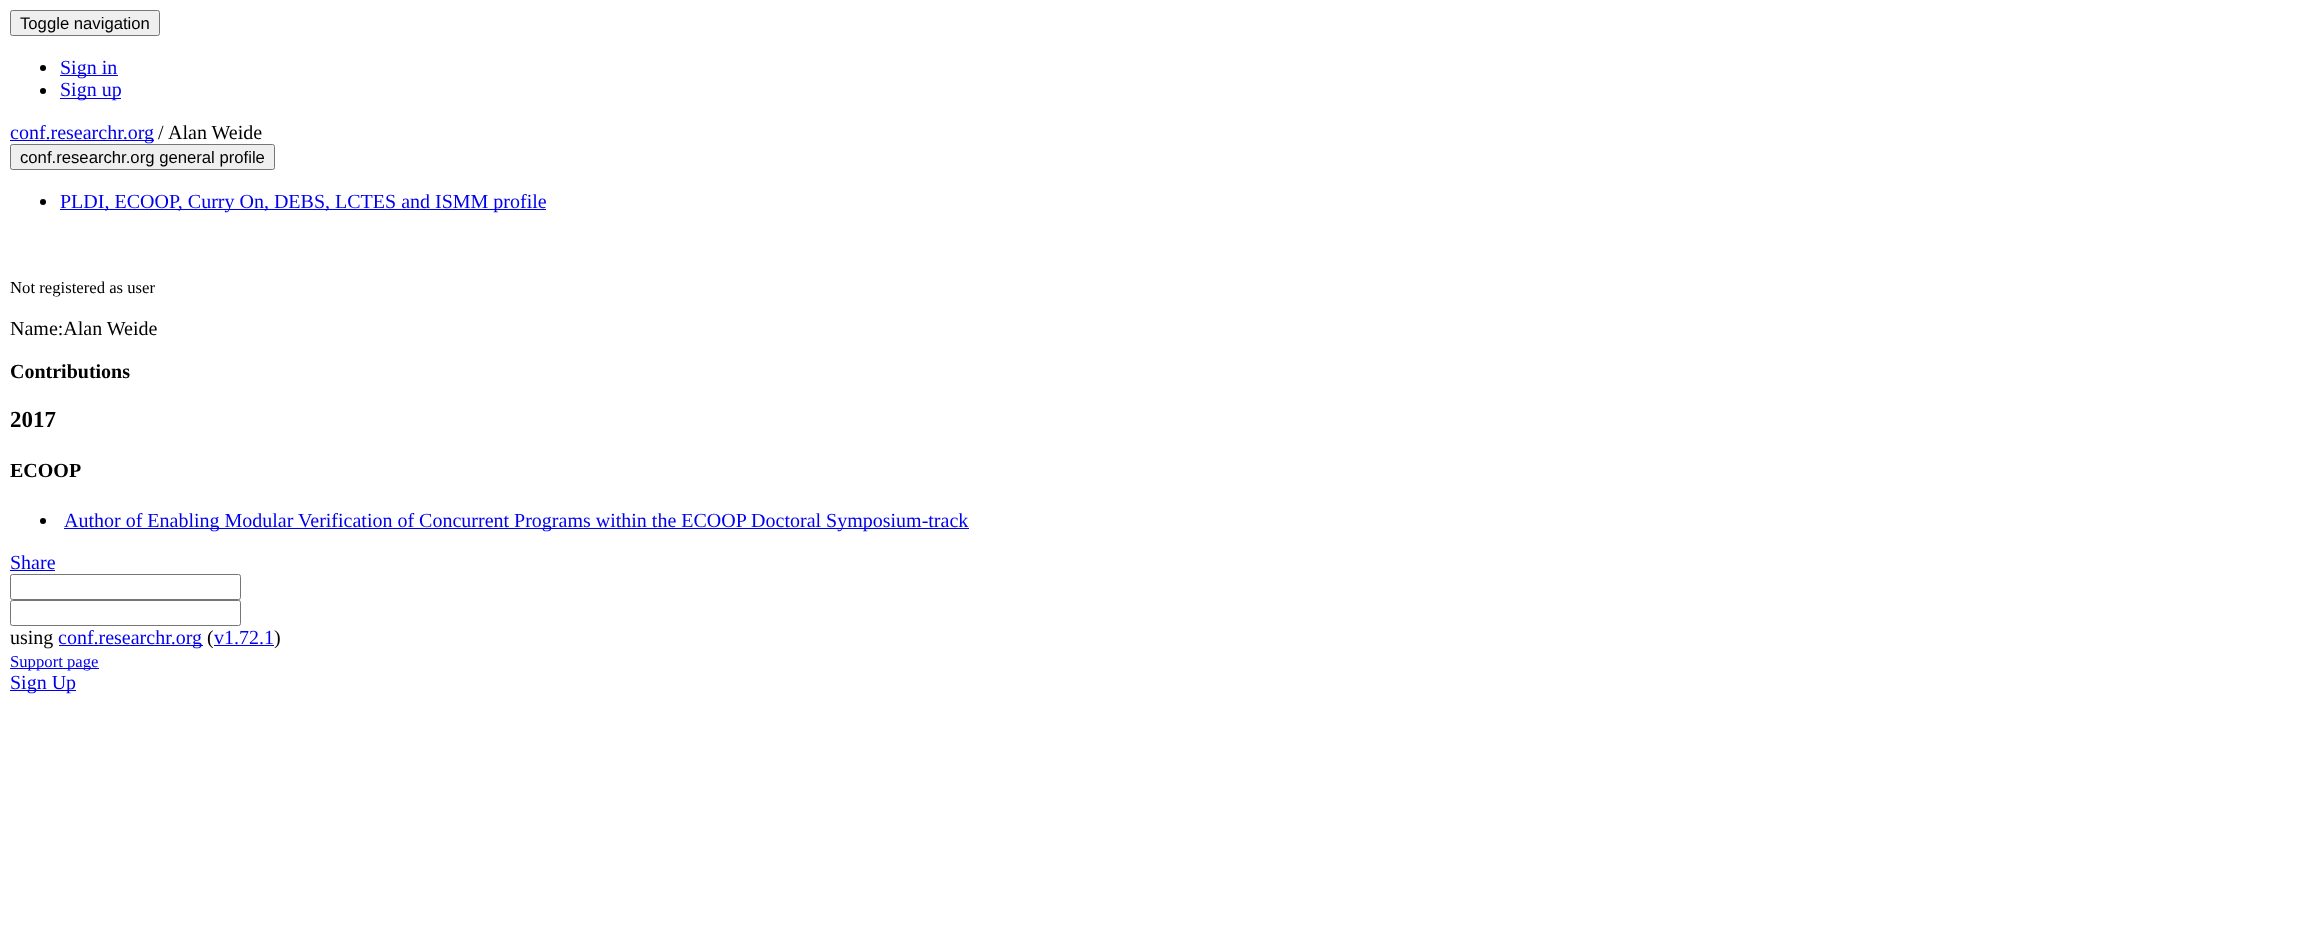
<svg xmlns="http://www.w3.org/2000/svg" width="2312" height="945">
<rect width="100%" height="100%" fill="#fff"/>
<rect x="10.5" y="10.5" width="149" height="25" rx="2" fill="#efefef" stroke="#767676"/>
<text x="20" y="29" style="font-family:Liberation Sans;font-size:16.7px;fill:#000">Toggle navigation</text>
<circle cx="43" cy="68" r="3" fill="#000"/>
<rect x="60" y="75" width="58" height="1" fill="#00e"/>
<text x="60" y="74" style="font-family:Liberation Serif;font-size:20px;fill:#00e">Sign in</text>
<circle cx="43" cy="91" r="3" fill="#000"/>
<rect x="60" y="98" width="61" height="1" fill="#00e"/>
<text x="60" y="96" style="font-family:Liberation Serif;font-size:20px;fill:#00e">Sign up</text>
<rect x="10" y="140" width="144" height="1" fill="#00e"/>
<text x="10" y="139" style="font-family:Liberation Serif;font-size:20px;fill:#00e">conf.researchr.org</text>
<text x="158" y="139" style="font-family:Liberation Serif;font-size:20px;fill:#000">/</text>
<text x="168" y="139" style="font-family:Liberation Serif;font-size:20px;fill:#000">Alan Weide</text>
<rect x="10.5" y="144.5" width="264" height="25" rx="2" fill="#efefef" stroke="#767676"/>
<text x="20" y="163" style="font-family:Liberation Sans;font-size:16.7px;fill:#000">conf.researchr.org general profile</text>
<circle cx="43" cy="202" r="3" fill="#000"/>
<rect x="60" y="209" width="486" height="1" fill="#00e"/>
<text x="60" y="208" style="font-family:Liberation Serif;font-size:20px;fill:#00e">PLDI, ECOOP, Curry On, DEBS, LCTES and ISMM profile</text>
<text x="10" y="293" style="font-family:Liberation Serif;font-size:16.7px;fill:#000">Not registered as user</text>
<text x="10" y="335" style="font-family:Liberation Serif;font-size:20px;fill:#000">Name:Alan Weide</text>
<text x="10" y="378" style="font-family:Liberation Serif;font-size:20px;font-weight:bold;fill:#000">Contributions</text>
<text x="10" y="427" style="font-family:Liberation Serif;font-size:23px;font-weight:bold;fill:#000">2017</text>
<text x="10" y="477" style="font-family:Liberation Serif;font-size:20px;font-weight:bold;fill:#000">ECOOP</text>
<circle cx="43" cy="521" r="3" fill="#000"/>
<rect x="64" y="528" width="905" height="1" fill="#00e"/>
<text x="64" y="527" style="font-family:Liberation Serif;font-size:20px;fill:#00e">Author of Enabling Modular Verification of Concurrent Programs within the ECOOP Doctoral Symposium-track</text>
<text x="10" y="569" style="font-family:Liberation Serif;font-size:20px;fill:#00e">Share</text>
<rect x="10" y="570" width="45" height="1" fill="#00e"/>
<rect x="10.5" y="574.5" width="230" height="25" rx="2" fill="none" stroke="#767676"/>
<rect x="10.5" y="600.5" width="230" height="25" rx="2" fill="none" stroke="#767676"/>
<text x="10" y="644" style="font-family:Liberation Serif;font-size:20px;fill:#000">using</text>
<rect x="59" y="645" width="144" height="1" fill="#00e"/>
<text x="58" y="644" style="font-family:Liberation Serif;font-size:20px;fill:#00e">conf.researchr.org</text>
<text x="207" y="644" style="font-family:Liberation Serif;font-size:20px;fill:#000">(</text>
<text x="214" y="644" style="font-family:Liberation Serif;font-size:20px;fill:#00e">v1.72.1</text>
<rect x="214" y="645" width="60" height="1" fill="#00e"/>
<text x="274" y="644" style="font-family:Liberation Serif;font-size:20px;fill:#000">)</text>
<rect x="10" y="668" width="89" height="1" fill="#00e"/>
<text x="10" y="667" style="font-family:Liberation Serif;font-size:16.7px;fill:#00e">Support page</text>
<rect x="10" y="690" width="66" height="1" fill="#00e"/>
<text x="10" y="689" style="font-family:Liberation Serif;font-size:20px;fill:#00e">Sign Up</text>
</svg>
